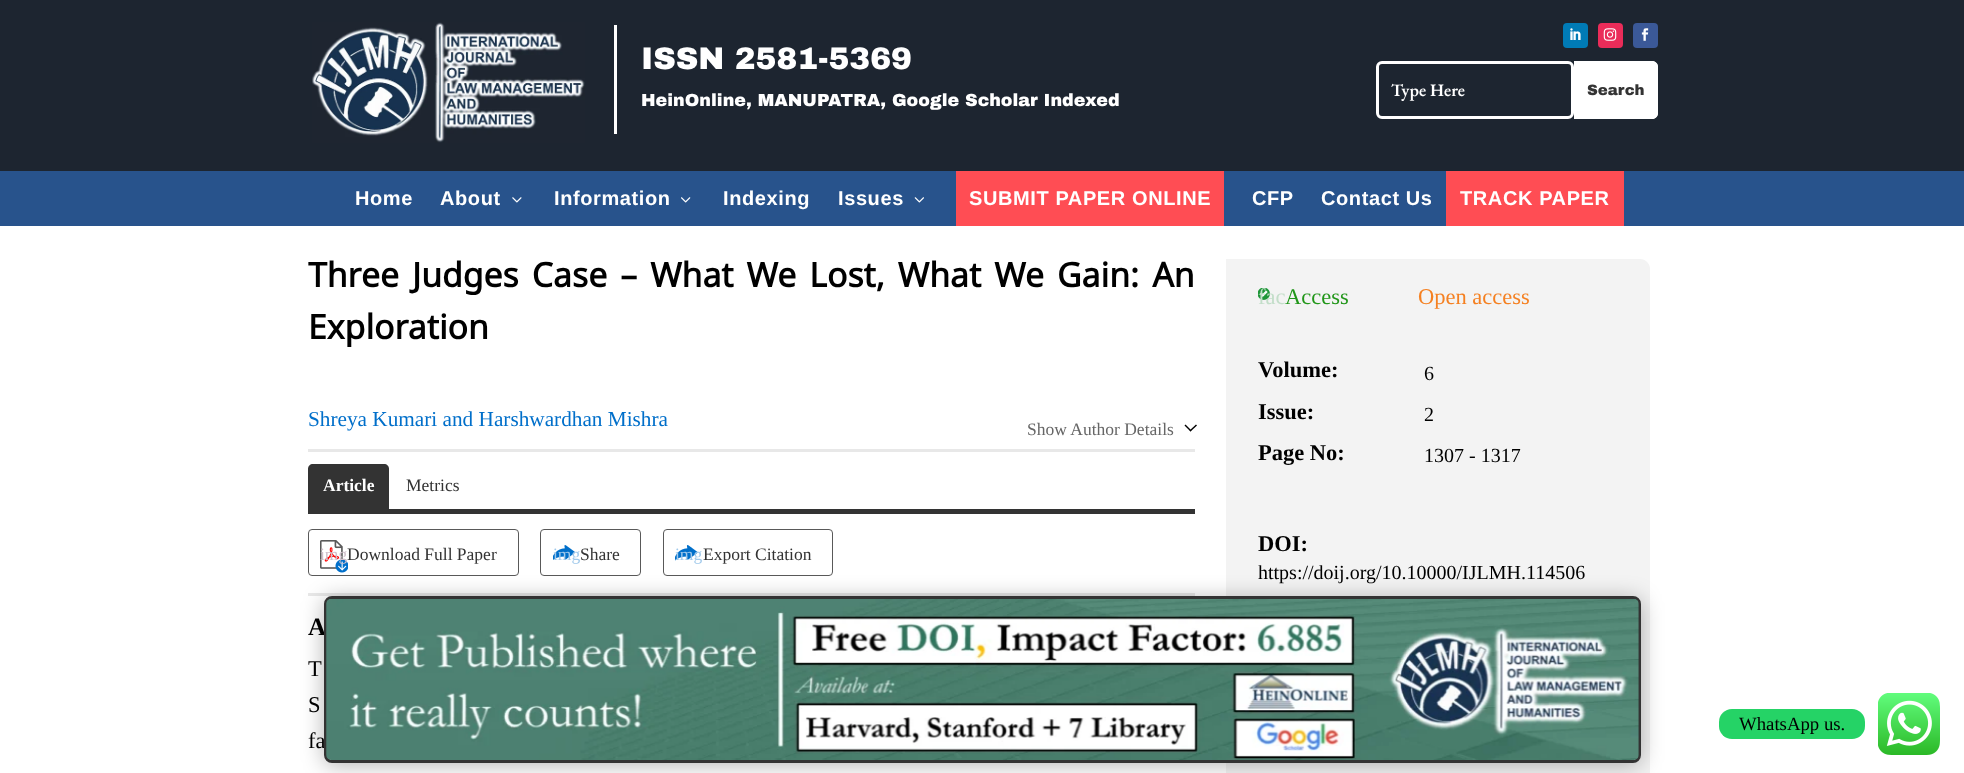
<svg xmlns="http://www.w3.org/2000/svg" width="1964" height="773">
<rect width="100%" height="100%" fill="#fff"/>
<rect width="1964" height="171" fill="#1d2530"/>
<image x="312" y="22" width="273" height="121" href="media/1.png"/>
<rect x="614" y="25" width="3" height="109" fill="#fff"/>
<text x="641" y="69" style="font-family:Archivo Black;font-size:31.25px;font-weight:900;fill:#fff">ISSN 2581-5369</text>
<text x="641" y="106" style="font-family:Archivo Black;font-size:17.5px;font-weight:900;fill:#fff">HeinOnline, MANUPATRA, Google Scholar Indexed</text>
<rect x="1563" y="23" width="25" height="25" rx="4" fill="#007bb6"/>
<image x="1570" y="28" width="11" height="12" href="media/2.png"/>
<rect x="1598" y="23" width="25" height="25" rx="4" fill="#ea2c59"/>
<image x="1603" y="28" width="14" height="13" href="media/3.png"/>
<rect x="1633" y="23" width="25" height="25" rx="4" fill="#3b5998"/>
<image x="1641" y="28" width="8" height="13" href="media/4.png"/>
<rect x="1377.5" y="62.5" width="195" height="55" rx="4.5" fill="none" stroke="#fff" stroke-width="3"/>
<text x="1391" y="96" style="font-family:EB Garamond;font-size:17.5px;font-weight:600;fill:#fff">Type Here</text>
<path d="M1574 61h78c3.5 0 6 2.5 6 6v46c0 3.5-2.5 6-6 6h-78z" fill="#fff"/>
<path d="M1574 61v58h78c3 0 6-3 6-6v-46c0-3-3-6-6-6zm3 3v52h78v-52z" fill="#fff" fill-rule="evenodd"/>
<text x="1587" y="95" style="font-family:Archivo Black;font-size:15px;font-weight:900;fill:#333">Search</text>
<rect y="171" width="1964" height="55" fill="#28538c"/>
<text x="355" y="205" style="font-family:Liberation Sans;font-size:20px;font-weight:bold;letter-spacing:0.6px;fill:#fff">Home</text>
<text x="440" y="205" style="font-family:Liberation Sans;font-size:20px;font-weight:bold;letter-spacing:0.6px;fill:#fff">About</text>
<image x="512" y="197" width="10" height="6" href="media/5.png"/>
<text x="554" y="205" style="font-family:Liberation Sans;font-size:20px;font-weight:bold;letter-spacing:0.6px;fill:#fff">Information</text>
<image x="681" y="197" width="10" height="6" href="media/6.png"/>
<text x="723" y="205" style="font-family:Liberation Sans;font-size:20px;font-weight:bold;letter-spacing:0.6px;fill:#fff">Indexing</text>
<text x="838" y="205" style="font-family:Liberation Sans;font-size:20px;font-weight:bold;letter-spacing:0.6px;fill:#fff">Issues</text>
<image x="914" y="197" width="10" height="6" href="media/7.png"/>
<rect x="956" y="171" width="268" height="55" fill="#ff4d54"/>
<text x="969" y="205" style="font-family:Liberation Sans;font-size:20px;font-weight:bold;letter-spacing:0.6px;fill:#fff">SUBMIT PAPER ONLINE</text>
<text x="1252" y="205" style="font-family:Liberation Sans;font-size:20px;font-weight:bold;letter-spacing:0.6px;fill:#fff">CFP</text>
<text x="1321" y="205" style="font-family:Liberation Sans;font-size:20px;font-weight:bold;letter-spacing:0.6px;fill:#fff">Contact Us</text>
<rect x="1446" y="171" width="178" height="55" fill="#ff4d54"/>
<text x="1460" y="205" style="font-family:Liberation Sans;font-size:20px;font-weight:bold;letter-spacing:0.6px;fill:#fff">TRACK PAPER</text>
<rect x="308" y="449" width="887" height="3" fill="#e8e8e8"/>
<text x="308" y="287" word-spacing="4.25" style="font-family:Noto Sans;font-size:33.75px;font-weight:bold;fill:#000">Three Judges Case – What We Lost, What We Gain: An</text>
<text x="308" y="339" style="font-family:Noto Sans;font-size:33.75px;font-weight:bold;fill:#000">Exploration</text>
<text x="308" y="426" style="font-family:Liberation Serif;font-size:21.25px;fill:#006fca">Shreya Kumari and Harshwardhan Mishra</text>
<text x="1027" y="435" style="font-family:Liberation Serif;font-size:17.5px;fill:#666">Show Author Details</text>
<path d="M1196 424.5l1 1l-6.5 6l-1-1z" fill="#000"/>
<path d="M1185.5 424.5l6 6l-1 1l-6-6z" fill="#000"/>
<rect x="308" y="509" width="887" height="5" fill="#333"/>
<path d="M313 464h71c3 0 5 2 5 5v40h-81v-40c0-3 2-5 5-5z" fill="#333"/>
<text x="323" y="491" style="font-family:Liberation Serif;font-size:17.5px;font-weight:bold;fill:#fff">Article</text>
<text x="406" y="491" style="font-family:Liberation Serif;font-size:17.5px;fill:#333">Metrics</text>
<rect x="308" y="593" width="887" height="3" fill="#e8e8e8"/>
<rect x="308.5" y="529.5" width="210" height="46" rx="3.5" fill="none" stroke="#595959"/>
<image x="320" y="540" width="28" height="33" href="media/8.png"/>
<text x="320" y="560" style="font-family:Liberation Serif;font-size:17.5px;fill:#cfbfca">img</text>
<text x="347" y="560" style="font-family:Liberation Serif;font-size:17.5px;fill:#333">Download Full Paper</text>
<rect x="540.5" y="529.5" width="100" height="46" rx="3.5" fill="none" stroke="#595959"/>
<image x="553" y="545" width="22" height="15" href="media/9.png"/>
<text x="553" y="560" style="font-family:Liberation Serif;font-size:17.5px;fill:#a0c9eb">img</text>
<text x="580" y="560" style="font-family:Liberation Serif;font-size:17.5px;fill:#333">Share</text>
<rect x="663.5" y="529.5" width="169" height="46" rx="3.5" fill="none" stroke="#595959"/>
<image x="675" y="545" width="23" height="16" href="media/10.png"/>
<text x="675" y="560" style="font-family:Liberation Serif;font-size:17.5px;fill:#a0c9eb">img</text>
<text x="703" y="560" style="font-family:Liberation Serif;font-size:17.5px;fill:#333">Export Citation</text>
<text x="308" y="635" style="font-family:Liberation Serif;font-size:25px;font-weight:bold;fill:#000">A</text>
<text x="308" y="676" word-spacing="2" style="font-family:Liberation Serif;font-size:22.5px;fill:#000">T</text>
<text x="308" y="712" word-spacing="1" style="font-family:Liberation Serif;font-size:22.5px;fill:#000">S</text>
<text x="308" y="748" word-spacing="6" style="font-family:Liberation Serif;font-size:22.5px;fill:#000">fa</text>
<path d="M1226 259h414c5.5 0 10 4.5 10 10v504c0 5.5-4.5 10-10 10h-414z" fill="#f3f3f3"/>
<image x="1258" y="288" width="12" height="12" href="media/11.png"/>
<text x="1258" y="304" style="font-family:Liberation Serif;font-size:22.5px;fill:#c3dec9">fac</text>
<text x="1285" y="304" style="font-family:Liberation Serif;font-size:22.5px;fill:#219619">Access</text>
<text x="1418" y="304" style="font-family:Liberation Serif;font-size:22.5px;fill:#f58021">Open access</text>
<text x="1258" y="377" style="font-family:Liberation Serif;font-size:22.5px;font-weight:bold;fill:#000">Volume:</text>
<text x="1424" y="380" style="font-family:Liberation Serif;font-size:20px;fill:#000">6</text>
<text x="1258" y="419" style="font-family:Liberation Serif;font-size:22.5px;font-weight:bold;fill:#000">Issue:</text>
<text x="1424" y="421" style="font-family:Liberation Serif;font-size:20px;fill:#000">2</text>
<text x="1258" y="460" style="font-family:Liberation Serif;font-size:22.5px;font-weight:bold;fill:#000">Page No:</text>
<text x="1424" y="462" style="font-family:Liberation Serif;font-size:20px;fill:#000">1307 - 1317</text>
<text x="1258" y="551" style="font-family:Liberation Serif;font-size:22.5px;font-weight:bold;fill:#000">DOI:</text>
<text x="1258" y="579" style="font-family:Liberation Serif;font-size:20px;fill:#000">https://doij.org/10.10000/IJLMH.114506</text>
<rect x="324" y="599" width="1317" height="166" rx="8" fill="#0000004d" filter="blur(11px)"/>
<rect x="325.5" y="597.5" width="1314" height="164" rx="6.5" fill="none" stroke="#333" stroke-width="3"/>
<image x="326" y="599" width="1313" height="161" href="media/12.png"/>
<rect x="1719" y="709" width="146" height="30" rx="13" fill="#25d366"/>
<text x="1739" y="730" style="font-family:Liberation Serif;font-size:18.75px;fill:#000">WhatsApp us.</text>
<image x="1878" y="693" width="62" height="62" href="media/13.png"/>
</svg>
